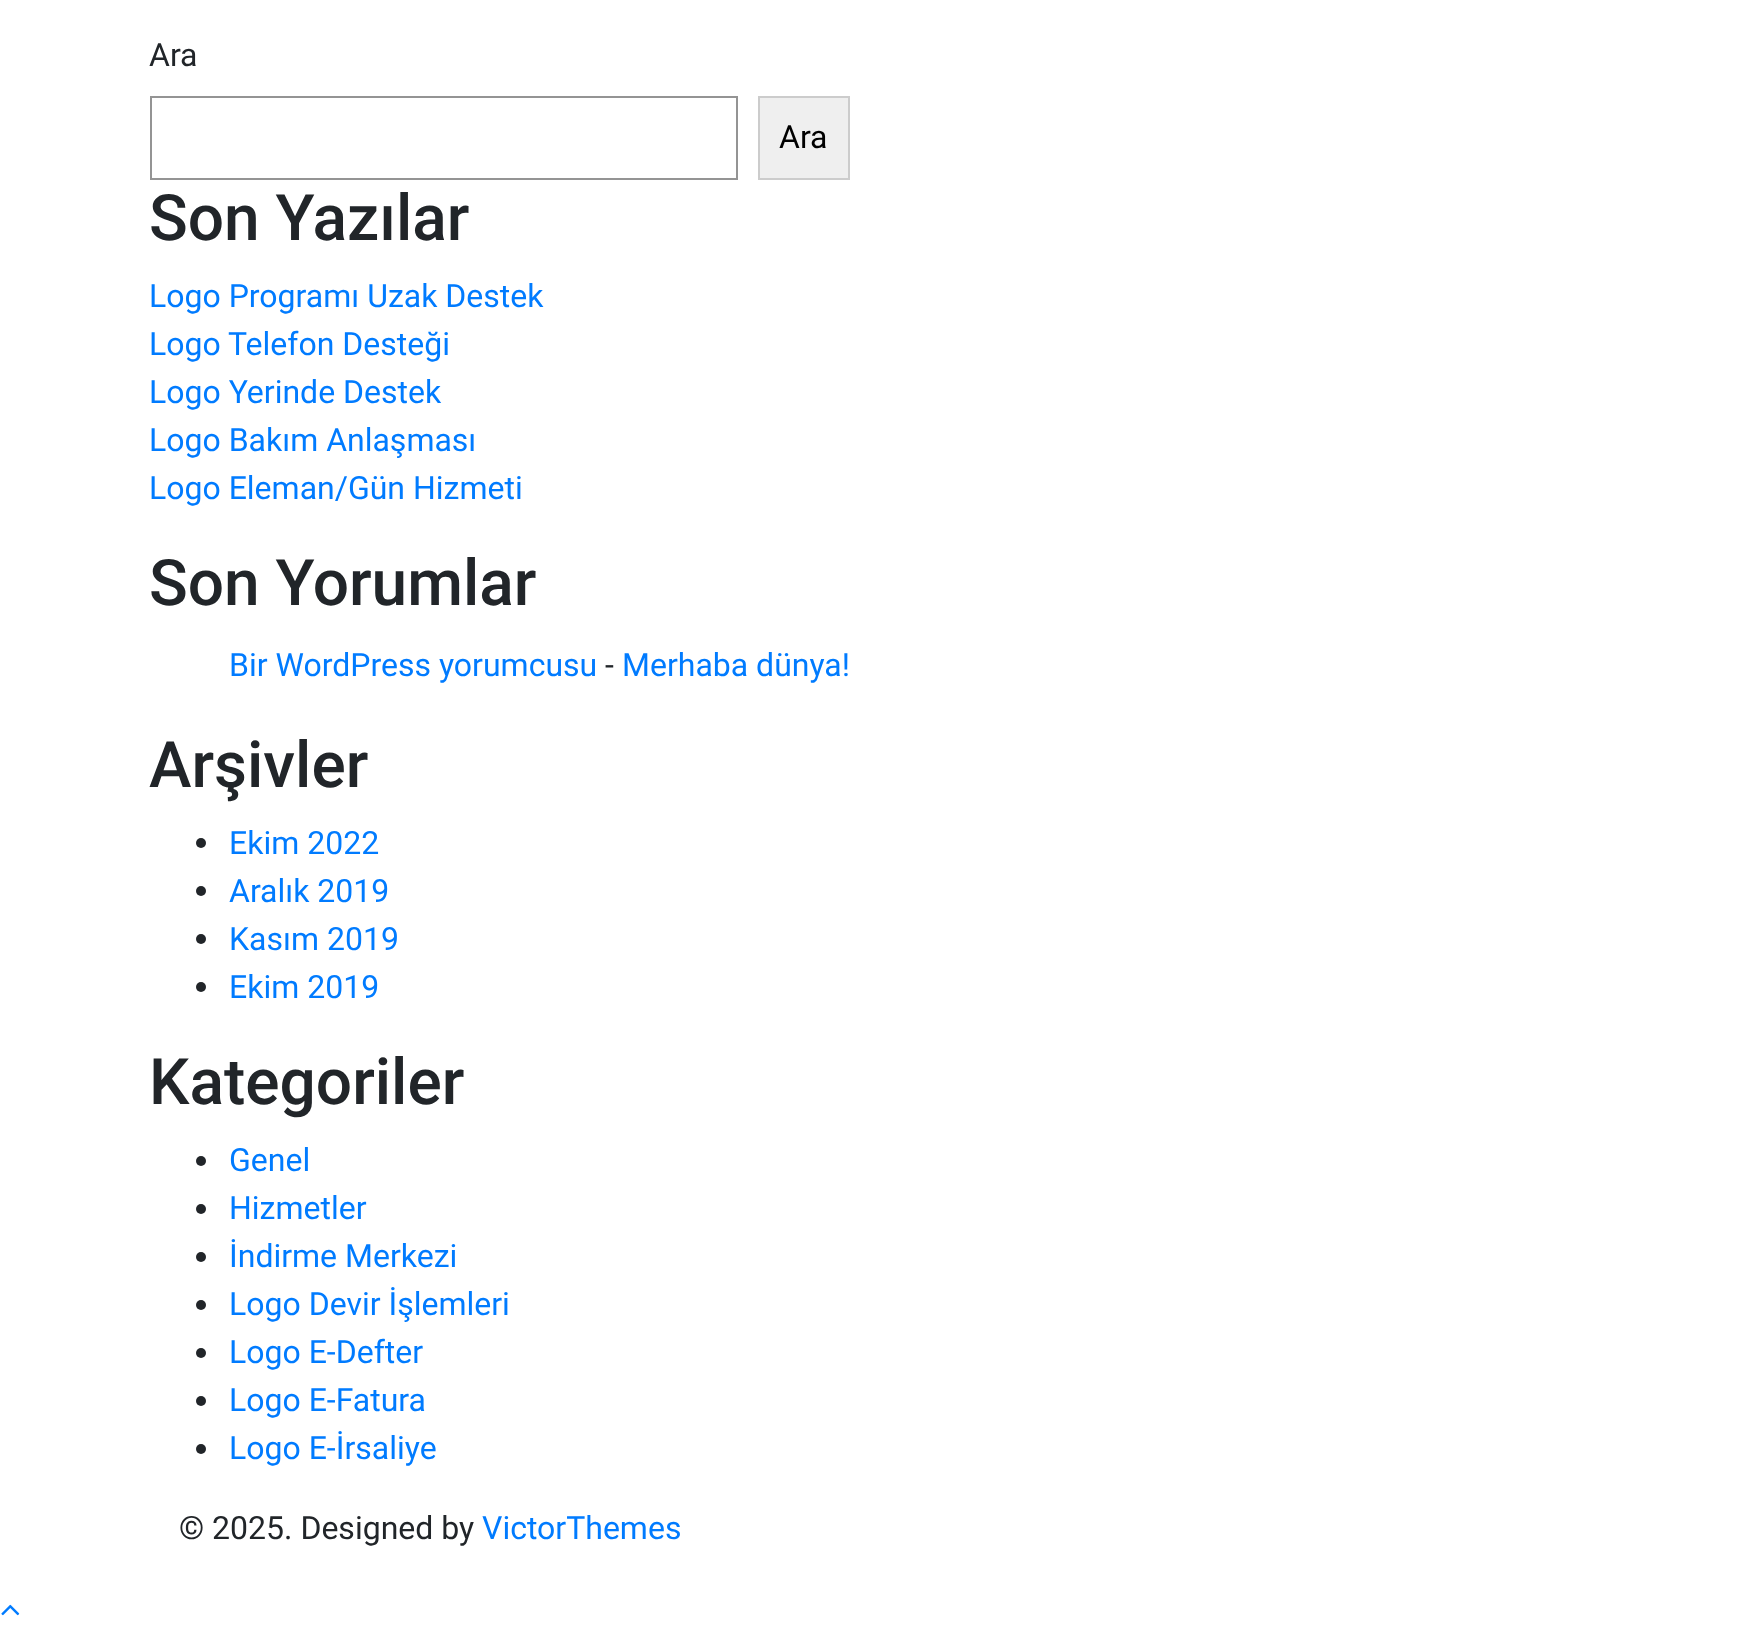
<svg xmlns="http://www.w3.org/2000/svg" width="1738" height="1633">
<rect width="100%" height="100%" fill="#fff"/>
<text x="149" y="66" style="font-family:Roboto;font-size:32px;fill:#212529">Ara</text>
<rect x="151" y="97" width="586" height="82" fill="none" stroke="#949494" stroke-width="2"/>
<rect x="759" y="97" width="90" height="82" fill="#efefef" stroke="#ccc" stroke-width="2"/>
<text x="779" y="148" style="font-family:Roboto;font-size:32px;fill:#000">Ara</text>
<text x="149" y="240" style="font-family:Roboto;font-size:64px;font-weight:500;fill:#212529">Son Yazılar</text>
<text x="149" y="307" style="font-family:Roboto;font-size:32px;fill:#007bff">Logo Programı Uzak Destek</text>
<text x="149" y="355" style="font-family:Roboto;font-size:32px;fill:#007bff">Logo Telefon Desteği</text>
<text x="149" y="403" style="font-family:Roboto;font-size:32px;fill:#007bff">Logo Yerinde Destek</text>
<text x="149" y="451" style="font-family:Roboto;font-size:32px;fill:#007bff">Logo Bakım Anlaşması</text>
<text x="149" y="499" style="font-family:Roboto;font-size:32px;fill:#007bff">Logo Eleman/Gün Hizmeti</text>
<text x="149" y="605" style="font-family:Roboto;font-size:64px;font-weight:500;fill:#212529">Son Yorumlar</text>
<text x="229" y="676" style="font-family:Roboto;font-size:32px;fill:#007bff">Bir WordPress yorumcusu</text>
<text x="605" y="676" style="font-family:Roboto;font-size:32px;fill:#212529">-</text>
<text x="622" y="676" style="font-family:Roboto;font-size:32px;fill:#007bff">Merhaba dünya!</text>
<text x="149" y="787" style="font-family:Roboto;font-size:64px;font-weight:500;fill:#212529">Arşivler</text>
<circle cx="201" cy="843" r="5" fill="#212529"/>
<text x="229" y="854" style="font-family:Roboto;font-size:32px;fill:#007bff">Ekim 2022</text>
<circle cx="201" cy="891" r="5" fill="#212529"/>
<text x="229" y="902" style="font-family:Roboto;font-size:32px;fill:#007bff">Aralık 2019</text>
<circle cx="201" cy="939" r="5" fill="#212529"/>
<text x="229" y="950" style="font-family:Roboto;font-size:32px;fill:#007bff">Kasım 2019</text>
<circle cx="201" cy="987" r="5" fill="#212529"/>
<text x="229" y="998" style="font-family:Roboto;font-size:32px;fill:#007bff">Ekim 2019</text>
<text x="149" y="1104" style="font-family:Roboto;font-size:64px;font-weight:500;fill:#212529">Kategoriler</text>
<circle cx="201" cy="1161" r="5" fill="#212529"/>
<text x="229" y="1171" style="font-family:Roboto;font-size:32px;fill:#007bff">Genel</text>
<circle cx="201" cy="1209" r="5" fill="#212529"/>
<text x="229" y="1219" style="font-family:Roboto;font-size:32px;fill:#007bff">Hizmetler</text>
<circle cx="201" cy="1257" r="5" fill="#212529"/>
<text x="229" y="1267" style="font-family:Roboto;font-size:32px;fill:#007bff">İndirme Merkezi</text>
<circle cx="201" cy="1305" r="5" fill="#212529"/>
<text x="229" y="1315" style="font-family:Roboto;font-size:32px;fill:#007bff">Logo Devir İşlemleri</text>
<circle cx="201" cy="1353" r="5" fill="#212529"/>
<text x="229" y="1363" style="font-family:Roboto;font-size:32px;fill:#007bff">Logo E-Defter</text>
<circle cx="201" cy="1401" r="5" fill="#212529"/>
<text x="229" y="1411" style="font-family:Roboto;font-size:32px;fill:#007bff">Logo E-Fatura</text>
<circle cx="201" cy="1449" r="5" fill="#212529"/>
<text x="229" y="1459" style="font-family:Roboto;font-size:32px;fill:#007bff">Logo E-İrsaliye</text>
<text x="179" y="1539" style="font-family:Roboto;font-size:32px;fill:#212529">© 2025. Designed by</text>
<text x="482" y="1539" style="font-family:Roboto;font-size:32px;fill:#007bff">VictorThemes</text>
<image x="1" y="1604" width="19" height="12" href="media/1.png"/>
</svg>
